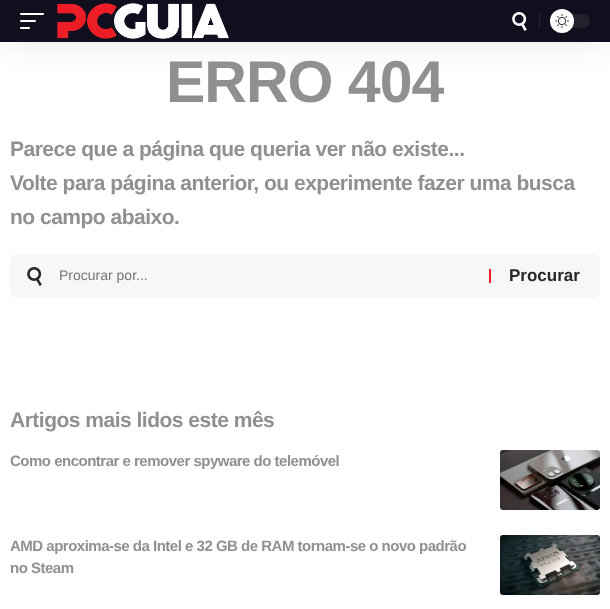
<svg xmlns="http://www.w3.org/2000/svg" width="610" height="609">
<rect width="100%" height="100%" fill="#fff"/>
<rect y="4" width="610" height="42" fill="#00000012" filter="blur(15px)"/>
<rect width="610" height="42" fill="#100f1e"/>
<rect x="20" y="13" width="24" height="2" rx="1" fill="#fff"/>
<rect x="20" y="20" width="16" height="2" rx="1" fill="#fff"/>
<rect x="20" y="27" width="10" height="2" rx="1" fill="#fff"/>
<image x="57" y="3" width="172" height="36" href="media/1.png"/>
<image x="512" y="12" width="15" height="19" href="media/2.png"/>
<rect x="539" y="14" width="1" height="14" fill="#282735"/>
<rect x="550" y="14" width="40" height="14" rx="7" fill="#22212e"/>
<circle cx="562" cy="21" r="12" fill="#fff"/>
<image x="555" y="14" width="14" height="14" href="media/3.png"/>
<text x="166" y="102" style="font-family:Liberation Sans;font-size:59px;font-weight:bold;letter-spacing:-1px;fill:#909090">ERRO 404</text>
<text x="10" y="156" style="font-family:Liberation Sans;font-size:21px;font-weight:bold;letter-spacing:-0.5px;fill:#909090">Parece que a página que queria ver não existe...</text>
<text x="10" y="190" style="font-family:Liberation Sans;font-size:21px;font-weight:bold;letter-spacing:-0.5px;fill:#909090">Volte para página anterior, ou experimente fazer uma busca</text>
<text x="10" y="224" style="font-family:Liberation Sans;font-size:21px;font-weight:bold;letter-spacing:-0.5px;fill:#909090">no campo abaixo.</text>
<rect x="10" y="254" width="590" height="44" rx="7" fill="#f7f7f7"/>
<image x="27" y="267" width="15" height="19" href="media/4.png"/>
<text x="59" y="280" style="font-family:Liberation Sans;font-size:14px;fill:#757575">Procurar por...</text>
<rect x="489" y="269" width="2" height="14" fill="#ed1d24"/>
<text x="509" y="281" style="font-family:Liberation Sans;font-size:17px;font-weight:bold;fill:#282828">Procurar</text>
<text x="10" y="427" style="font-family:Liberation Sans;font-size:21px;font-weight:bold;letter-spacing:-0.5px;fill:#909090">Artigos mais lidos este mês</text>
<text x="10" y="466" style="font-family:Liberation Sans;font-size:15px;font-weight:bold;letter-spacing:-0.5px;fill:#909090">Como encontrar e remover spyware do telemóvel</text>
<image x="500" y="450" width="100" height="60" href="media/5.png"/>
<text x="10" y="551" style="font-family:Liberation Sans;font-size:15px;font-weight:bold;letter-spacing:-0.5px;fill:#909090">AMD aproxima-se da Intel e 32 GB de RAM tornam-se o novo padrão</text>
<text x="10" y="573" style="font-family:Liberation Sans;font-size:15px;font-weight:bold;letter-spacing:-0.5px;fill:#909090">no Steam</text>
<image x="500" y="535" width="100" height="60" href="media/6.png"/>
</svg>
